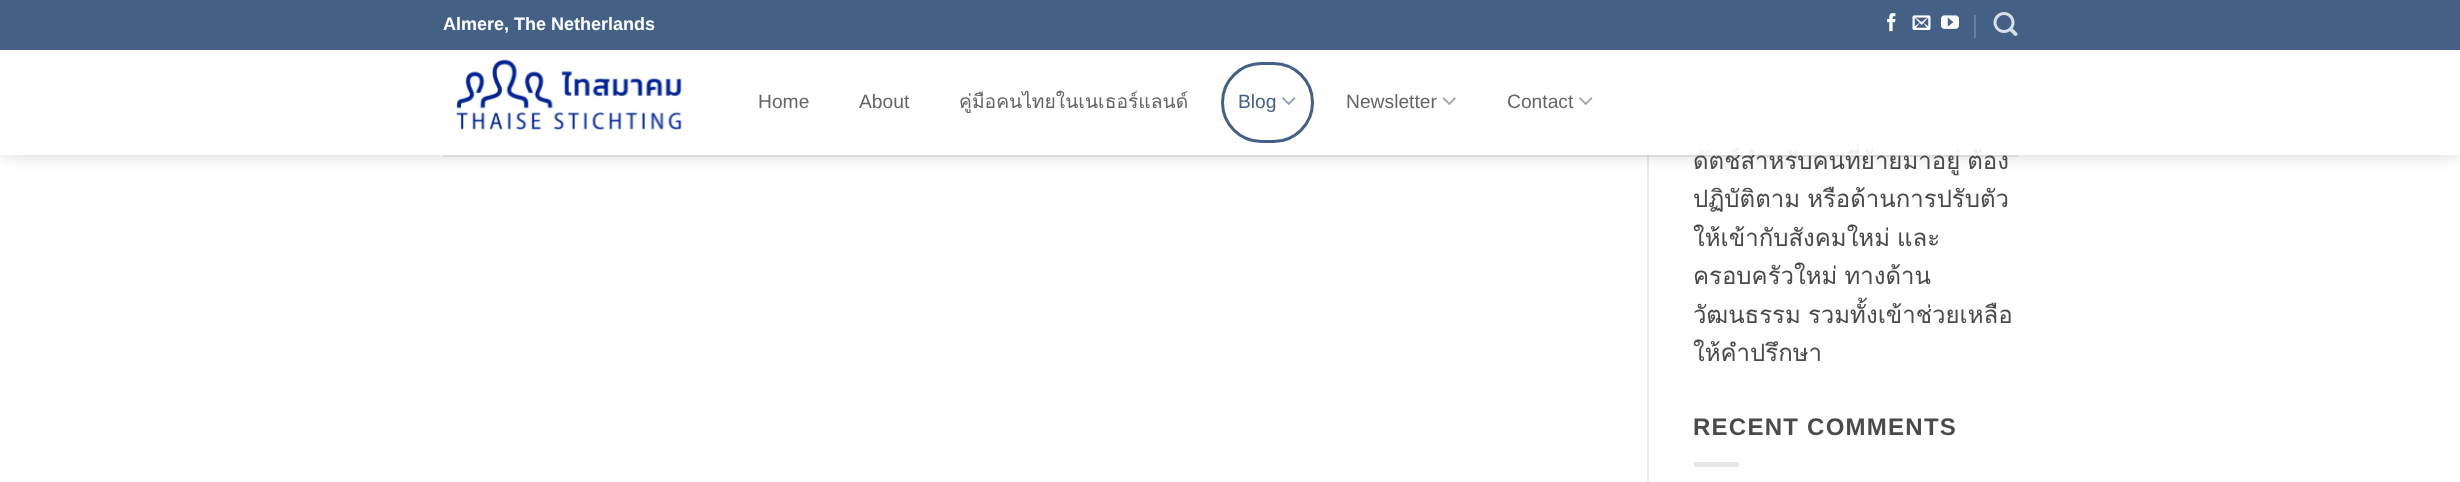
<svg xmlns="http://www.w3.org/2000/svg" width="2460" height="482">
<defs>
<clipPath id="clip1"><path d="M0 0h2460v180h-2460zm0 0h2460v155h-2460z" clip-rule="evenodd"/></clipPath>
</defs>
<rect width="100%" height="100%" fill="#fff"/>
<rect x="1647" y="50" width="2" height="432" fill="#ececec"/>
<g clip-path="url(#clip1)">
<rect x="2" y="2" width="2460" height="154" fill="#00000026" filter="blur(7.5px)"/>
</g>
<rect width="2460" height="50" fill="#446084"/>
<text x="443" y="30" style="font-family:Liberation Sans;font-size:18px;font-weight:bold;fill:#fff">Almere, The Netherlands</text>
<image x="1887" y="13" width="9" height="19" href="media/1.png"/>
<image x="1912" y="15" width="19" height="15" href="media/2.png"/>
<image x="1941" y="15" width="18" height="14" href="media/3.png"/>
<rect x="1974" y="15" width="2" height="23" fill="#69809d"/>
<image x="1993" y="12" width="25" height="24" href="media/4.png"/>
<text x="1693" y="169" word-spacing="-1" style="font-family:Loma;font-size:24px;fill:#4a4a4a">ดัตช์สำหรับคนที่ย้ายมาอยู่ ต้อง</text>
<rect y="50" width="2460" height="105" fill="#ffffffe6"/>
<image x="456" y="59" width="226" height="71" href="media/5.png"/>
<text x="758" y="108" style="font-family:Liberation Sans;font-size:19.25px;fill:#656565">Home</text>
<text x="859" y="108" style="font-family:Liberation Sans;font-size:19.25px;fill:#656565">About</text>
<text x="959" y="108" style="font-family:Loma;font-size:19.25px;fill:#656565">คู่มือคนไทยในเนเธอร์แลนด์</text>
<rect x="1222.5" y="63.5" width="90" height="78" rx="39" fill="none" stroke="#446084" stroke-width="3"/>
<text x="1238" y="108" style="font-family:Liberation Sans;font-size:19.25px;fill:#446084">Blog</text>
<image x="1282" y="97" width="14" height="8" href="media/6.png"/>
<text x="1346" y="108" style="font-family:Liberation Sans;font-size:19.25px;fill:#656565">Newsletter</text>
<image x="1442" y="97" width="14" height="8" href="media/7.png"/>
<text x="1507" y="108" style="font-family:Liberation Sans;font-size:19.25px;fill:#656565">Contact</text>
<image x="1579" y="97" width="14" height="8" href="media/8.png"/>
<rect x="443" y="155" width="1575" height="2" fill="#4a4a4a1a"/>
<text x="1693" y="207" word-spacing="-1" style="font-family:Loma;font-size:24px;fill:#4a4a4a">ปฏิบัติตาม หรือด้านการปรับตัว</text>
<text x="1693" y="246" word-spacing="-1" style="font-family:Loma;font-size:24px;fill:#4a4a4a">ให้เข้ากับสังคมใหม่ และ</text>
<text x="1693" y="284" word-spacing="-1" style="font-family:Loma;font-size:24px;fill:#4a4a4a">ครอบครัวใหม่ ทางด้าน</text>
<text x="1693" y="323" word-spacing="-1" style="font-family:Loma;font-size:24px;fill:#4a4a4a">วัฒนธรรม รวมทั้งเข้าช่วยเหลือ</text>
<text x="1693" y="361" style="font-family:Loma;font-size:24px;fill:#4a4a4a">ให้คำปรึกษา</text>
<text x="1693" y="435" style="font-family:Liberation Sans;font-size:24px;font-weight:bold;letter-spacing:1.25px;fill:#4a4a4a">RECENT COMMENTS</text>
<rect x="1694" y="462" width="45" height="5" fill="#e6e6e6"/>
</svg>
